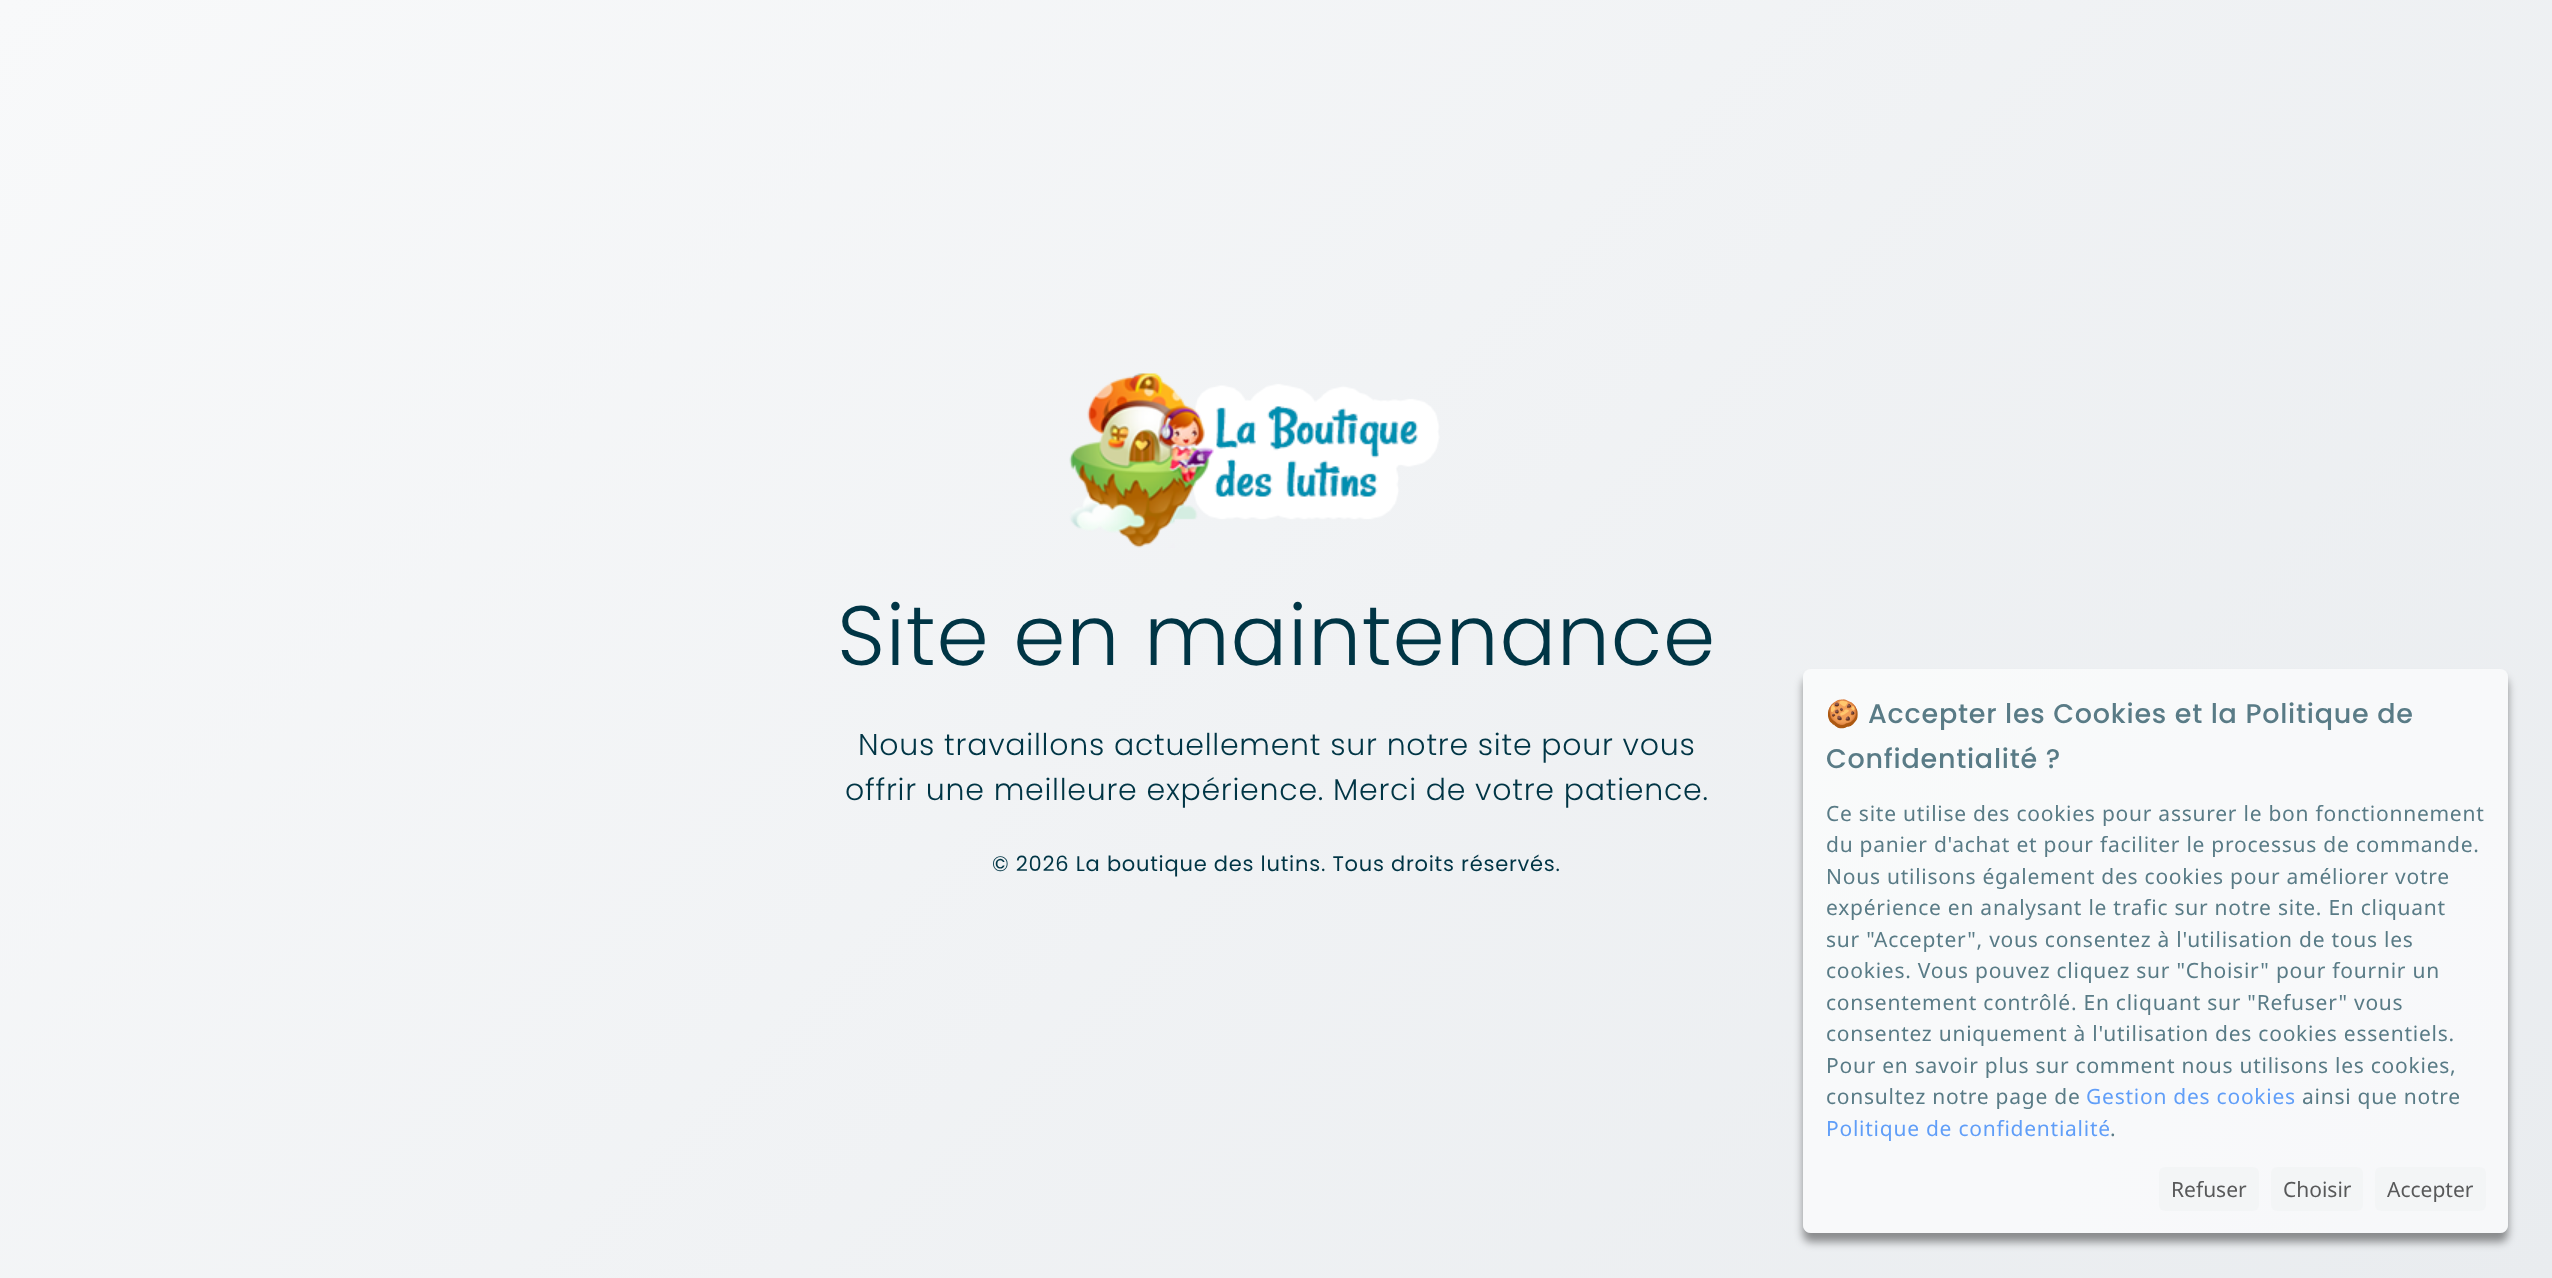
<svg xmlns="http://www.w3.org/2000/svg" width="2552" height="1278">
<defs>
<linearGradient id="g1" gradientUnits="userSpaceOnUse" x1="319" y1="-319" x2="2234" y2="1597"><stop offset="0" stop-color="#f8f9fa"/><stop offset="1" stop-color="#e9ecef"/></linearGradient>
<clipPath id="clip1"><path d="M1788 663h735v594h-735zm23 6h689c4.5 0 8 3.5 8 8v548c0 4.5-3.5 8-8 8h-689c-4.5 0-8-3.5-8-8v-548c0-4.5 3.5-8 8-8z" clip-rule="evenodd"/></clipPath>
</defs>
<rect width="100%" height="100%" fill="#fff"/>
<rect width="2552" height="1278" fill="url(#g1)"/>
<image x="1069" y="373" width="371" height="175" href="media/1.png"/>
<text x="837" y="665" style="font-family:Poppins;font-size:84px;font-weight:300;letter-spacing:0.75px;fill:#003545">Site en maintenance</text>
<text x="858" y="755" style="font-family:Poppins;font-size:30px;font-weight:300;letter-spacing:0.75px;fill:#003545">Nous travaillons actuellement sur notre site pour vous</text>
<text x="845" y="800" style="font-family:Poppins;font-size:30px;font-weight:300;letter-spacing:0.75px;fill:#003545">offrir une meilleure expérience. Merci de votre patience.</text>
<text x="992" y="871" style="font-family:Poppins;font-size:21px;letter-spacing:0.75px;fill:#003545">© 2026 La boutique des lutins. Tous droits réservés.</text>
<g clip-path="url(#clip1)">
<rect x="1803" y="678" width="705" height="564" rx="8" fill="#00000069" filter="blur(4.5px)"/>
</g>
<rect x="1803" y="669" width="705" height="564" rx="8" fill="#ffffffa1"/>
<text x="1826" y="723" style="font-family:Noto Color Emoji;font-size:27px;letter-spacing:0.75px;fill:#597b86">🍪</text>
<text x="1868" y="723" style="font-family:Poppins;font-size:27px;font-weight:500;letter-spacing:0.75px;fill:#597b86">Accepter les Cookies et la Politique de</text>
<text x="1826" y="768" style="font-family:Poppins;font-size:27px;font-weight:500;letter-spacing:0.75px;fill:#597b86">Confidentialité ?</text>
<text x="1826" y="821" style="font-family:Noto Sans;font-size:21px;letter-spacing:0.75px;fill:#597b86">Ce site utilise des cookies pour assurer le bon fonctionnement</text>
<text x="1826" y="852" style="font-family:Noto Sans;font-size:21px;letter-spacing:0.75px;fill:#597b86">du panier d'achat et pour faciliter le processus de commande.</text>
<text x="1826" y="884" style="font-family:Noto Sans;font-size:21px;letter-spacing:0.75px;fill:#597b86">Nous utilisons également des cookies pour améliorer votre</text>
<text x="1826" y="915" style="font-family:Noto Sans;font-size:21px;letter-spacing:0.75px;fill:#597b86">expérience en analysant le trafic sur notre site. En cliquant</text>
<text x="1826" y="947" style="font-family:Noto Sans;font-size:21px;letter-spacing:0.75px;fill:#597b86">sur "Accepter", vous consentez à l'utilisation de tous les</text>
<text x="1826" y="978" style="font-family:Noto Sans;font-size:21px;letter-spacing:0.75px;fill:#597b86">cookies. Vous pouvez cliquez sur "Choisir" pour fournir un</text>
<text x="1826" y="1010" style="font-family:Noto Sans;font-size:21px;letter-spacing:0.75px;fill:#597b86">consentement contrôlé. En cliquant sur "Refuser" vous</text>
<text x="1826" y="1041" style="font-family:Noto Sans;font-size:21px;letter-spacing:0.75px;fill:#597b86">consentez uniquement à l'utilisation des cookies essentiels.</text>
<text x="1826" y="1073" style="font-family:Noto Sans;font-size:21px;letter-spacing:0.75px;fill:#597b86">Pour en savoir plus sur comment nous utilisons les cookies,</text>
<text x="1826" y="1104" style="font-family:Noto Sans;font-size:21px;letter-spacing:0.75px;fill:#597b86">consultez notre page de</text>
<text x="2086" y="1104" style="font-family:Noto Sans;font-size:21px;letter-spacing:0.75px;fill:#609ef8">Gestion des cookies</text>
<text x="2302" y="1104" style="font-family:Noto Sans;font-size:21px;letter-spacing:0.75px;fill:#597b86">ainsi que notre</text>
<text x="1826" y="1136" style="font-family:Noto Sans;font-size:21px;letter-spacing:0.75px;fill:#609ef8">Politique de confidentialité</text>
<text x="2110" y="1136" style="font-family:Noto Sans;font-size:21px;letter-spacing:0.75px;fill:#597b86">.</text>
<rect x="2159" y="1167" width="100" height="44" rx="6" fill="#f3f5f6"/>
<text x="2171" y="1197" style="font-family:Noto Sans;font-size:21px;fill:#58595a">Refuser</text>
<rect x="2271" y="1167" width="92" height="44" rx="6" fill="#f3f5f6"/>
<text x="2283" y="1197" style="font-family:Noto Sans;font-size:21px;fill:#58595a">Choisir</text>
<rect x="2375" y="1167" width="111" height="44" rx="6" fill="#f3f5f6"/>
<text x="2387" y="1197" style="font-family:Noto Sans;font-size:21px;fill:#58595a">Accepter</text>
</svg>
